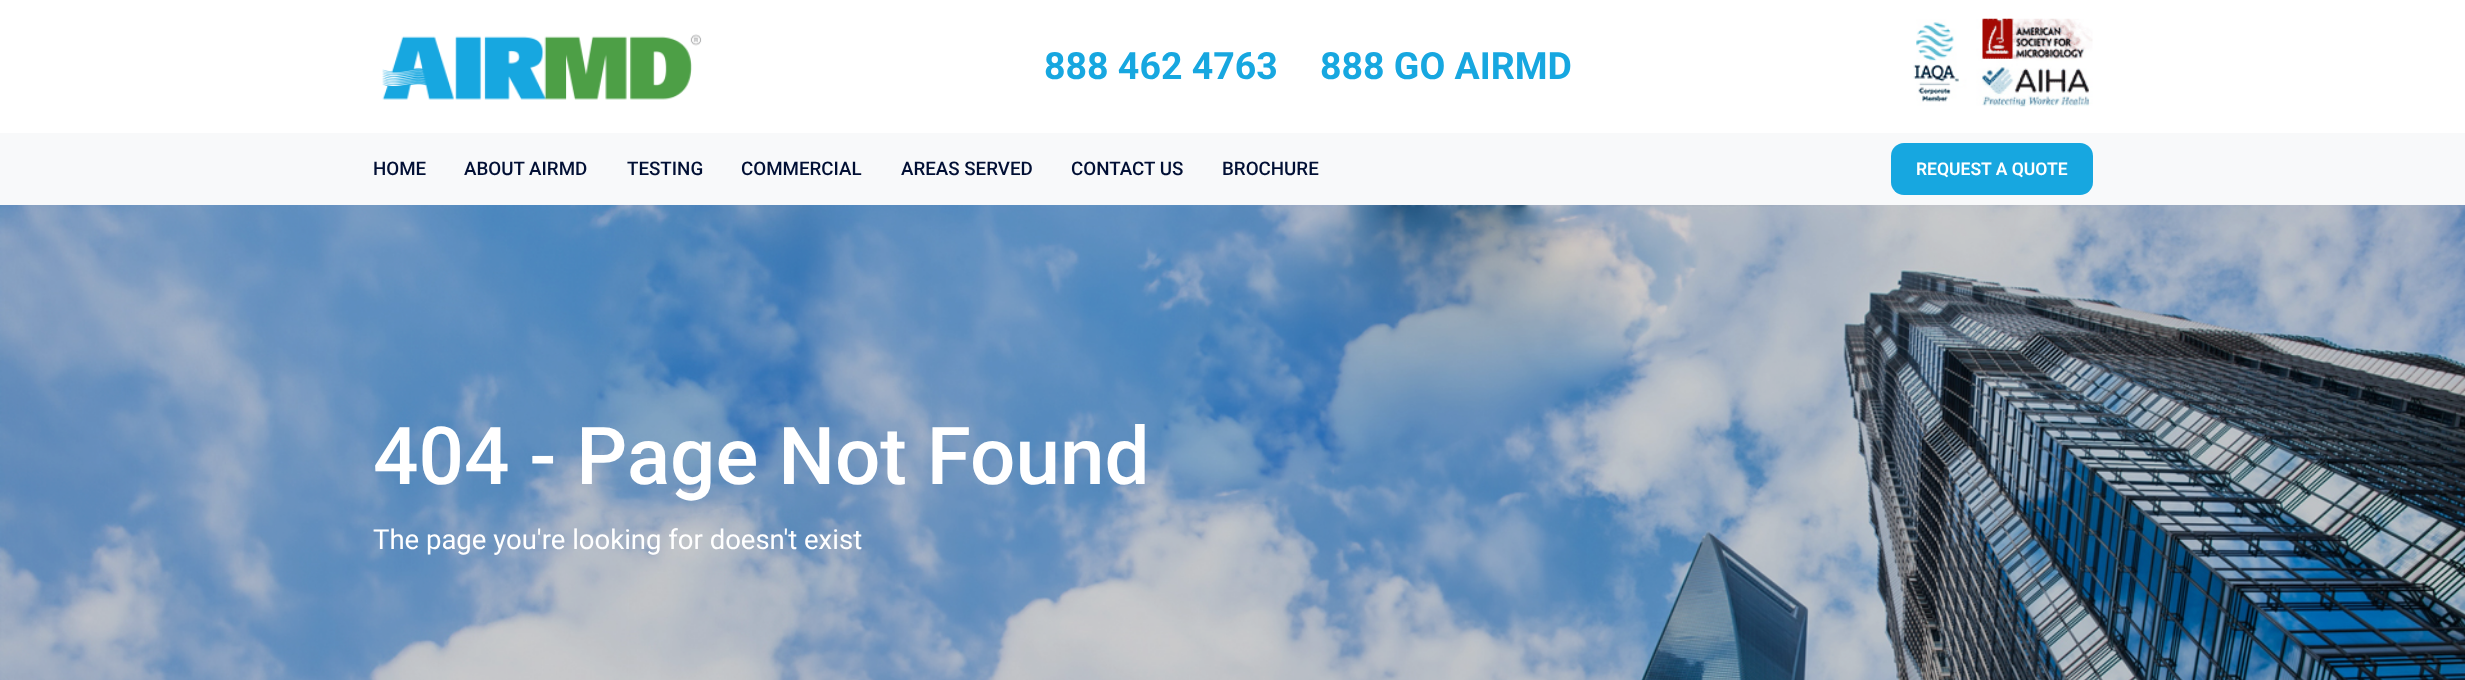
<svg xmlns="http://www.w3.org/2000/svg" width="2465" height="680">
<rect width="100%" height="100%" fill="#fff"/>
<image x="382" y="34" width="320" height="66" href="media/1.png"/>
<text x="1044" y="79" style="font-family:Roboto;font-size:37.5px;font-weight:bold;fill:#17a7e0">888 462 4763</text>
<text x="1320" y="79" style="font-family:Roboto;font-size:37.5px;font-weight:bold;fill:#17a7e0">888 GO AIRMD</text>
<image x="1913" y="18" width="180" height="89" href="media/2.png"/>
<rect y="133" width="2465" height="72" fill="#f8f9fa"/>
<text x="373" y="175" style="font-family:Roboto;font-size:18.75px;font-weight:500;fill:#010f34">HOME</text>
<text x="464" y="175" style="font-family:Roboto;font-size:18.75px;font-weight:500;fill:#010f34">ABOUT AIRMD</text>
<text x="627" y="175" style="font-family:Roboto;font-size:18.75px;font-weight:500;fill:#010f34">TESTING</text>
<text x="741" y="175" style="font-family:Roboto;font-size:18.75px;font-weight:500;fill:#010f34">COMMERCIAL</text>
<text x="901" y="175" style="font-family:Roboto;font-size:18.75px;font-weight:500;fill:#010f34">AREAS SERVED</text>
<text x="1071" y="175" style="font-family:Roboto;font-size:18.75px;font-weight:500;fill:#010f34">CONTACT US</text>
<text x="1222" y="175" style="font-family:Roboto;font-size:18.75px;font-weight:500;fill:#010f34">BROCHURE</text>
<rect x="1891" y="143" width="202" height="52" rx="13" fill="#17a7e0"/>
<text x="1916" y="175" style="font-family:Roboto;font-size:17.5px;font-weight:600;fill:#fff">REQUEST A QUOTE</text>
<image x="0" y="205" width="2465" height="475" href="media/3.png"/>
<text x="373" y="484" style="font-family:Roboto;font-size:80px;font-weight:500;fill:#fff">404 - Page Not Found</text>
<text x="373" y="549" style="font-family:Roboto;font-size:27.5px;fill:#fff">The page you're looking for doesn't exist</text>
</svg>
